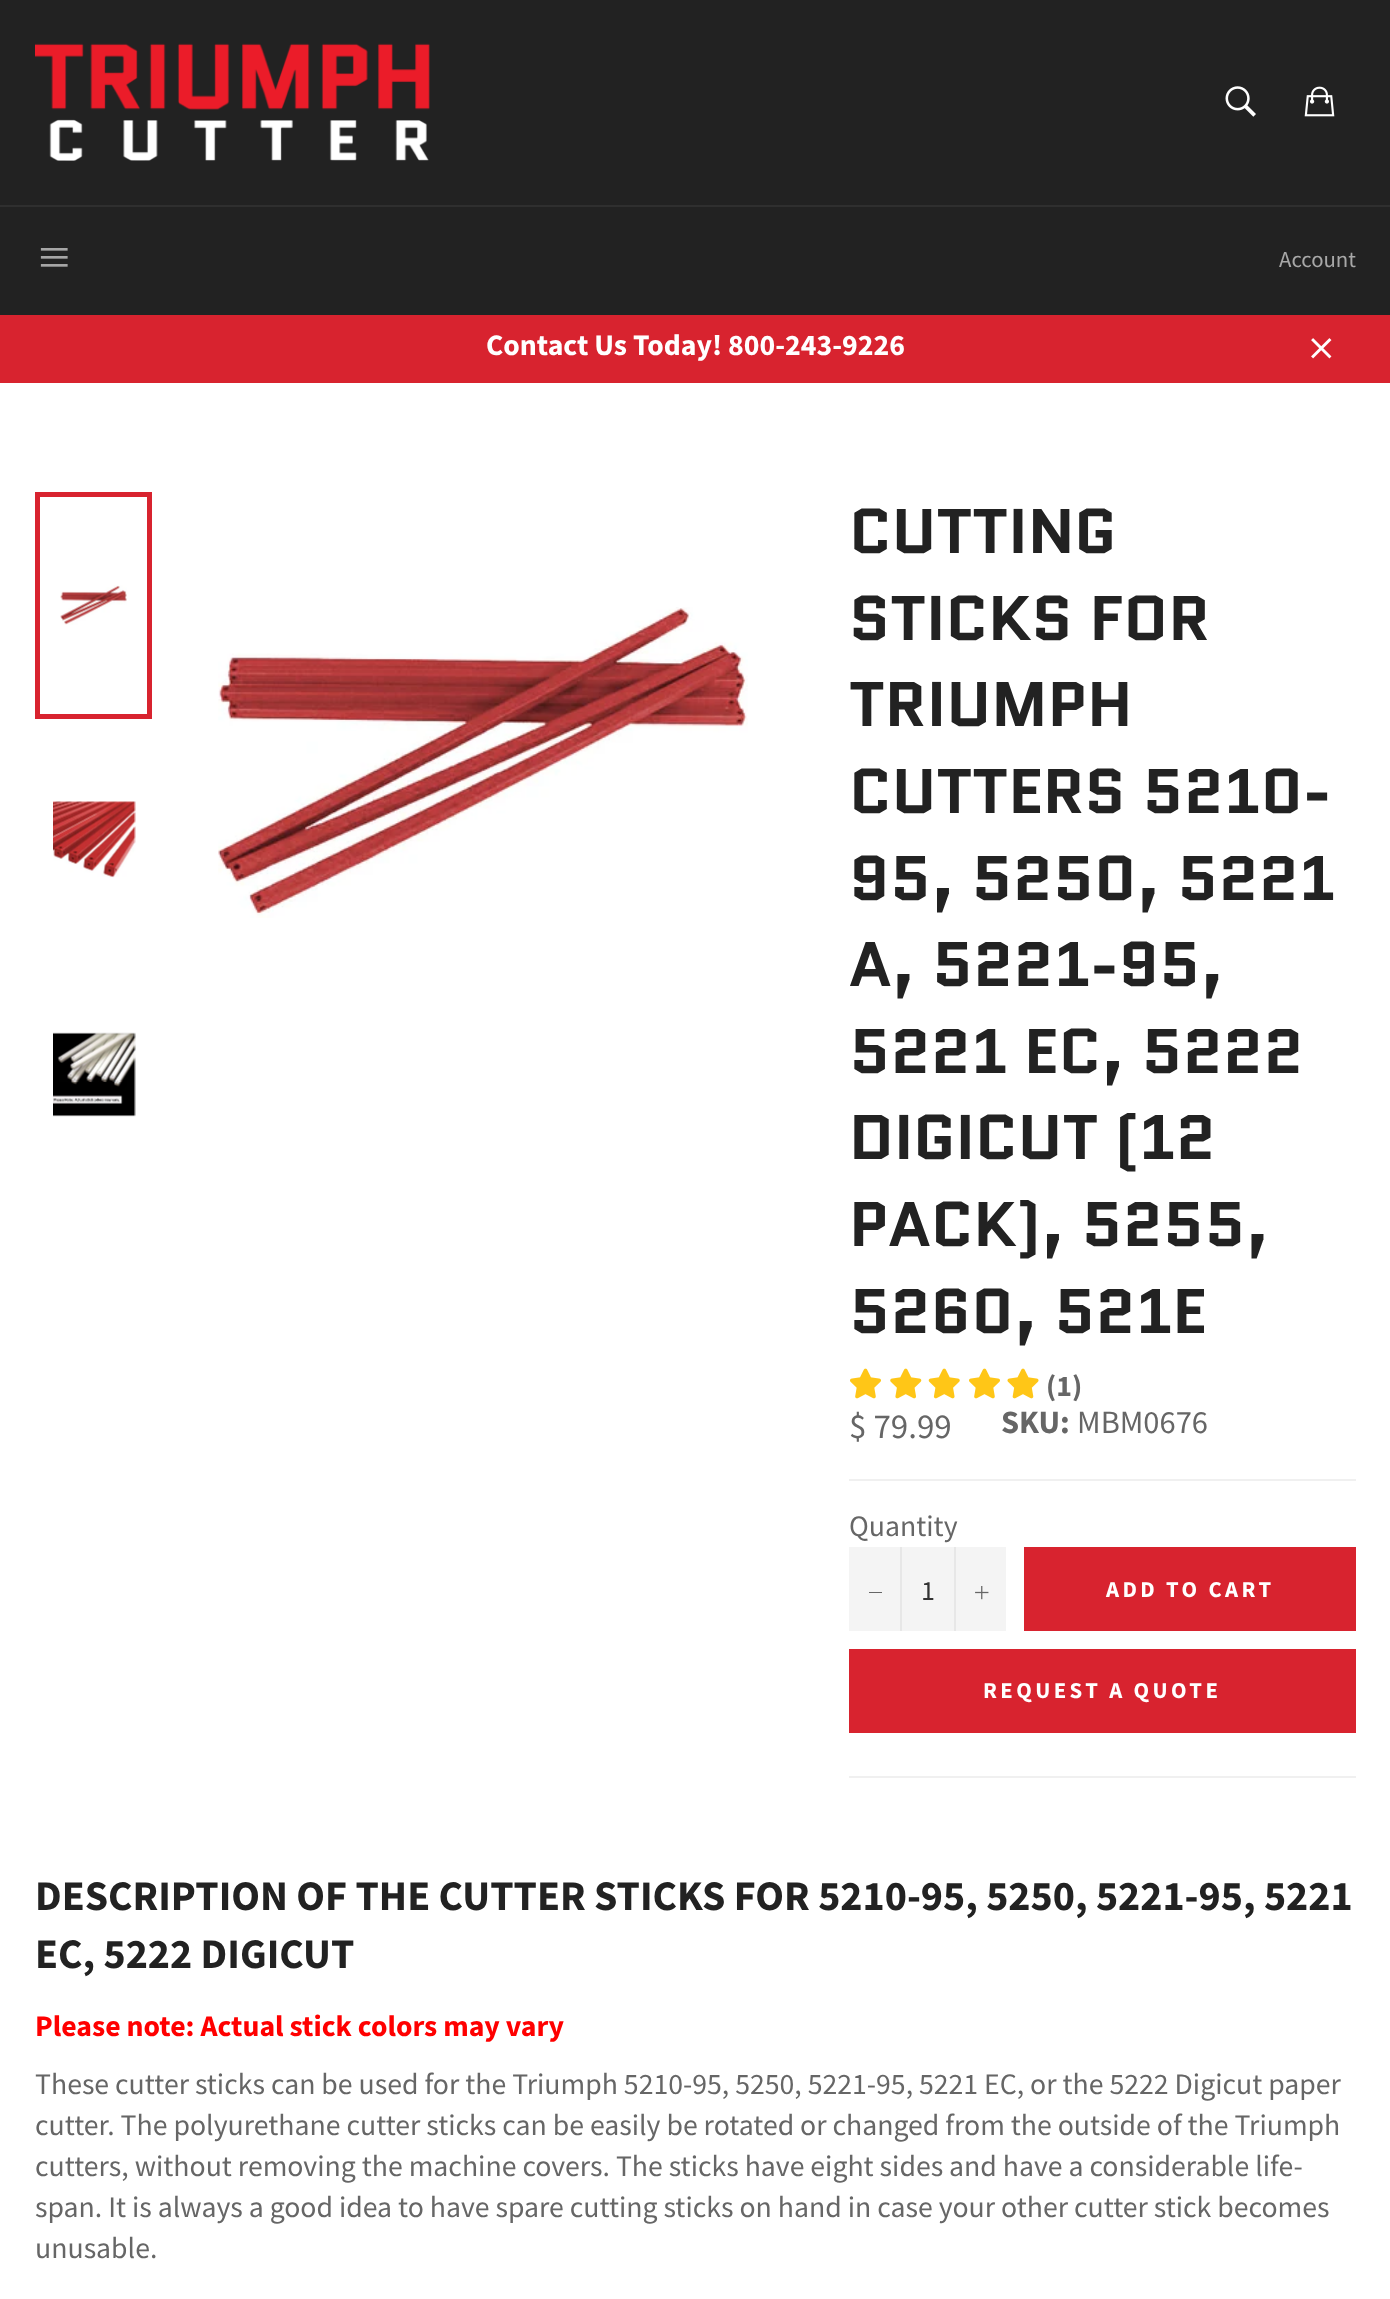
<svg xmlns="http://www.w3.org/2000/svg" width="1390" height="2299">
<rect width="100%" height="100%" fill="#fff"/>
<rect width="1390" height="205" fill="#222"/>
<image x="35" y="43" width="395" height="118" href="media/1.png"/>
<image x="1225" y="86" width="31" height="31" href="media/2.png"/>
<image x="1304" y="86" width="31" height="31" href="media/3.png"/>
<rect y="207" width="1390" height="108" fill="#222"/>
<rect y="205" width="1390" height="2" fill="#2f2f2f"/>
<image x="40" y="248" width="28" height="19" href="media/4.png"/>
<text x="1279" y="267" style="font-family:Source Sans Pro;font-size:22.75px;fill:#a7a7a7">Account</text>
<rect y="315" width="1390" height="68" fill="#d8232f"/>
<text x="486" y="355" style="font-family:Source Sans Pro;font-size:29.75px;font-weight:bold;fill:#fff">Contact Us Today! 800-243-9226</text>
<image x="1311" y="338" width="21" height="21" href="media/5.png"/>
<image x="60" y="585" width="67" height="40" href="media/6.png"/>
<rect x="37.5" y="494.5" width="112" height="222" fill="none" stroke="#d8232f" stroke-width="5"/>
<image x="53" y="801" width="83" height="77" href="media/7.png"/>
<image x="53" y="1032" width="83" height="85" href="media/8.png"/>
<image x="218" y="607" width="530" height="311" href="media/9.png"/>
<text x="849" y="553" style="font-family:Quantico;font-size:63px;font-weight:bold;fill:#222">CUTTING</text>
<text x="849" y="640" style="font-family:Quantico;font-size:63px;font-weight:bold;fill:#222">STICKS FOR</text>
<text x="849" y="726" style="font-family:Quantico;font-size:63px;font-weight:bold;fill:#222">TRIUMPH</text>
<text x="849" y="813" style="font-family:Quantico;font-size:63px;font-weight:bold;fill:#222">CUTTERS 5210-</text>
<text x="849" y="900" style="font-family:Quantico;font-size:63px;font-weight:bold;fill:#222">95, 5250, 5221</text>
<text x="849" y="986" style="font-family:Quantico;font-size:63px;font-weight:bold;fill:#222">A, 5221-95,</text>
<text x="849" y="1073" style="font-family:Quantico;font-size:63px;font-weight:bold;fill:#222">5221 EC, 5222</text>
<text x="849" y="1159" style="font-family:Quantico;font-size:63px;font-weight:bold;fill:#222">DIGICUT (12</text>
<text x="849" y="1246" style="font-family:Quantico;font-size:63px;font-weight:bold;fill:#222">PACK), 5255,</text>
<text x="849" y="1333" style="font-family:Quantico;font-size:63px;font-weight:bold;fill:#222">5260, 521E</text>
<image x="850" y="1368" width="31" height="31" href="media/10.png"/>
<image x="890" y="1368" width="32" height="31" href="media/11.png"/>
<image x="928" y="1368" width="32" height="31" href="media/12.png"/>
<image x="969" y="1368" width="31" height="31" href="media/10.png"/>
<image x="1007" y="1368" width="32" height="31" href="media/13.png"/>
<text x="1046" y="1396" style="font-family:Source Sans Pro;font-size:29.75px;font-weight:bold;fill:#666">(1)</text>
<text x="849" y="1438" style="font-family:Source Sans Pro;font-size:35px;fill:#666">$ 79.99</text>
<text x="1001" y="1433" style="font-family:Source Sans Pro;font-size:32.5px;font-weight:bold;fill:#666">SKU:</text>
<text x="1077" y="1433" style="font-family:Source Sans Pro;font-size:32.5px;fill:#666">MBM0676</text>
<rect x="849" y="1479" width="507" height="2" fill="#f0f0f0"/>
<text x="849" y="1536" style="font-family:Source Sans Pro;font-size:29.75px;fill:#666">Quantity</text>
<rect x="849" y="1547" width="157" height="84" fill="#f4f4f4"/>
<rect x="900" y="1547" width="2" height="84" fill="#e7e7e7"/>
<rect x="869" y="1592" width="13" height="1" fill="#666"/>
<text x="921" y="1600" style="font-family:Source Sans Pro;font-size:28px;fill:#333">1</text>
<rect x="954" y="1547" width="2" height="84" fill="#e7e7e7"/>
<image x="975" y="1586" width="14" height="14" href="media/14.png"/>
<rect x="1024" y="1547" width="332" height="84" fill="#d8232f"/>
<text x="1106" y="1597" style="font-family:Source Sans Pro;font-size:22.75px;font-weight:bold;letter-spacing:3.4px;fill:#fff">ADD TO CART</text>
<rect x="849" y="1649" width="507" height="84" fill="#d8232f"/>
<text x="983" y="1698" style="font-family:Source Sans Pro;font-size:22.75px;font-weight:bold;letter-spacing:3.4px;fill:#fff">REQUEST A QUOTE</text>
<rect x="849" y="1776" width="507" height="2" fill="#f0f0f0"/>
<text x="35" y="1910" style="font-family:Source Sans Pro;font-size:42px;font-weight:bold;fill:#222">DESCRIPTION OF THE CUTTER STICKS FOR 5210-95, 5250, 5221-95, 5221</text>
<text x="35" y="1968" style="font-family:Source Sans Pro;font-size:42px;font-weight:bold;fill:#222">EC, 5222 DIGICUT</text>
<text x="35" y="2036" style="font-family:Source Sans Pro;font-size:29.75px;font-weight:bold;fill:#f00">Please note: Actual stick colors may vary</text>
<text x="35" y="2094" style="font-family:Source Sans Pro;font-size:29.75px;fill:#666">These cutter sticks can be used for the Triumph 5210-95, 5250, 5221-95, 5221 EC, or the 5222 Digicut paper</text>
<text x="35" y="2135" style="font-family:Source Sans Pro;font-size:29.75px;fill:#666">cutter. The polyurethane cutter sticks can be easily be rotated or changed from the outside of the Triumph</text>
<text x="35" y="2176" style="font-family:Source Sans Pro;font-size:29.75px;fill:#666">cutters, without removing the machine covers. The sticks have eight sides and have a considerable life-</text>
<text x="35" y="2217" style="font-family:Source Sans Pro;font-size:29.75px;fill:#666">span. It is always a good idea to have spare cutting sticks on hand in case your other cutter stick becomes</text>
<text x="35" y="2258" style="font-family:Source Sans Pro;font-size:29.75px;fill:#666">unusable.</text>
</svg>
